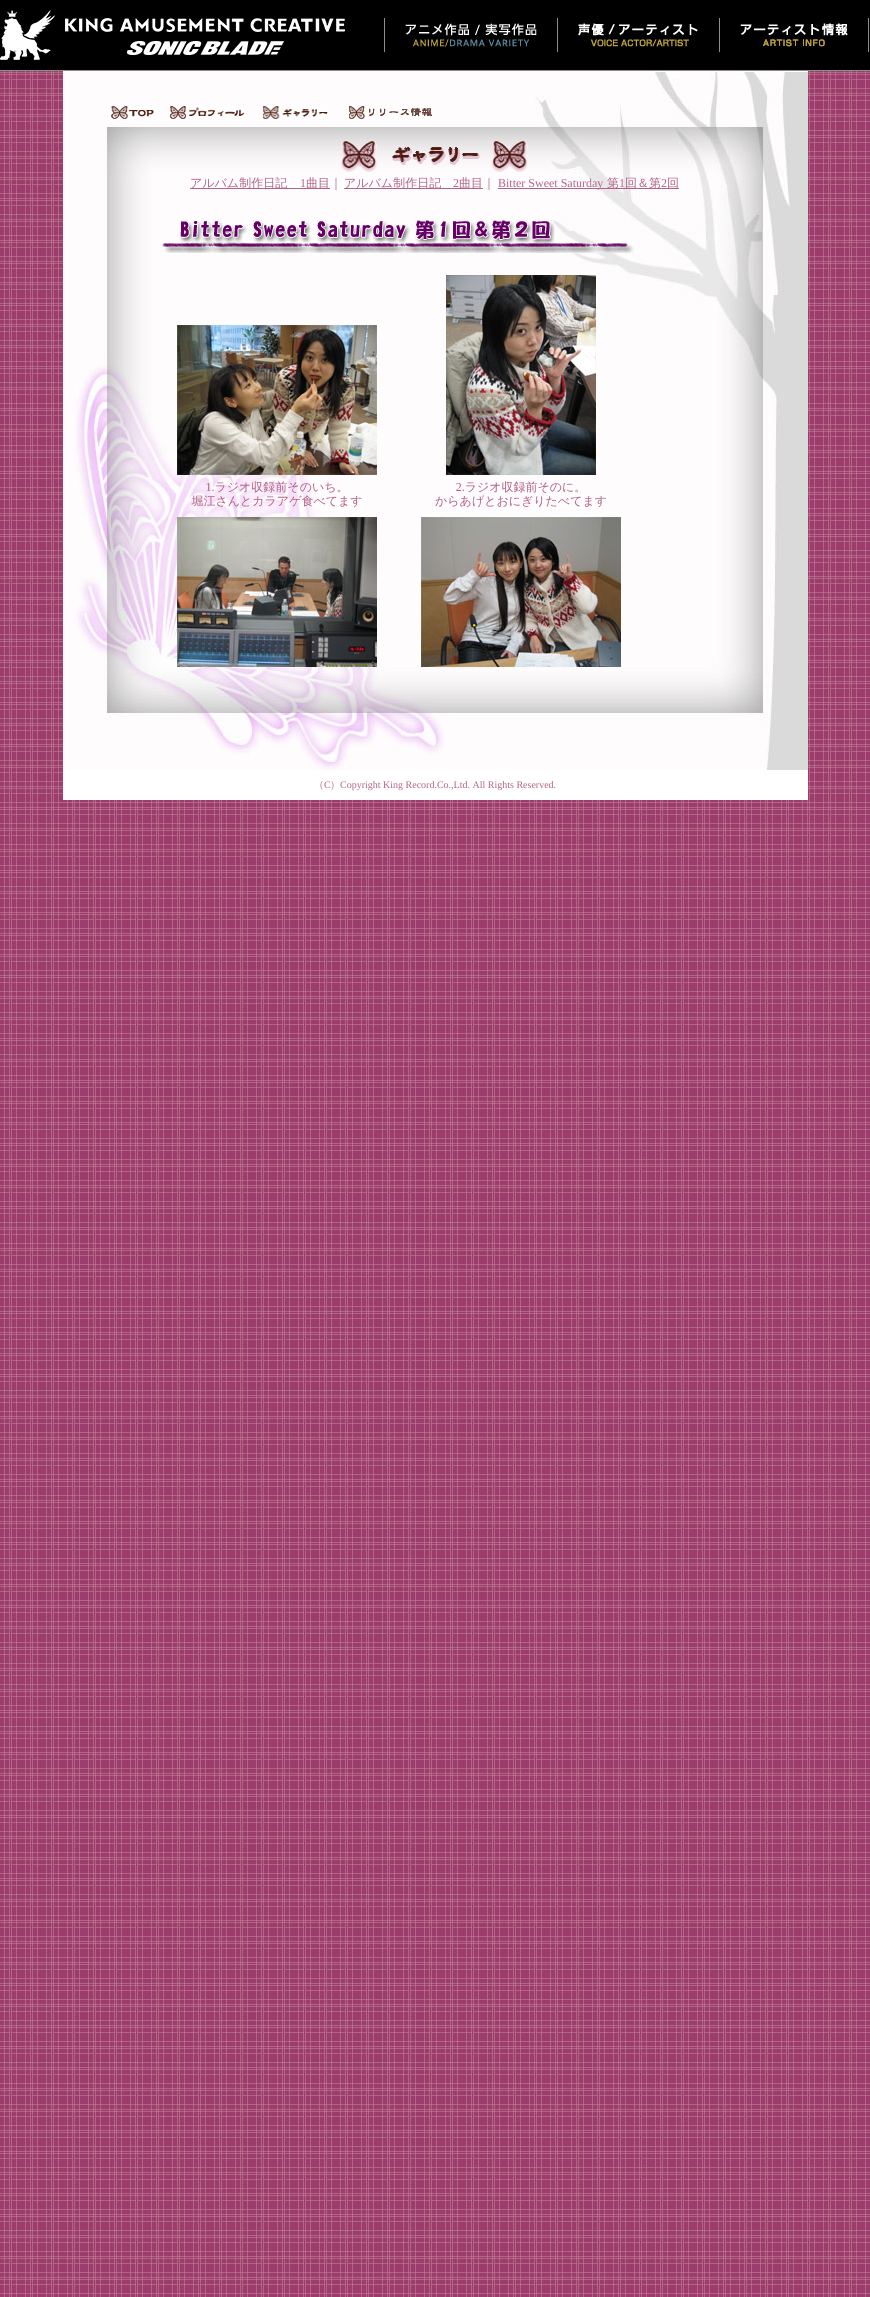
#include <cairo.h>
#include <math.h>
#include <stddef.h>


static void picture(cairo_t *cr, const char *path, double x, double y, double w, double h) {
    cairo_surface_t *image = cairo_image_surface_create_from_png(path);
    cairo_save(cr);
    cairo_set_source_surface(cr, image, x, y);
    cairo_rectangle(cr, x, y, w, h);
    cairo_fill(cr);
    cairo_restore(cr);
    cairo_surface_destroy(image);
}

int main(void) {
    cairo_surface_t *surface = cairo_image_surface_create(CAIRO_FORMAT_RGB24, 870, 2297);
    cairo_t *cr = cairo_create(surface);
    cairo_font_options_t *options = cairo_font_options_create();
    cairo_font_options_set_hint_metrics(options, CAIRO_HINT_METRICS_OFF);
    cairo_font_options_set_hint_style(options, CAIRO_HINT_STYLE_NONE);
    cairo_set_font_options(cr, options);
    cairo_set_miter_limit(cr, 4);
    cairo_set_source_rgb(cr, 1, 1, 1);
    cairo_paint(cr);
    picture(cr, "img1.png", 0, 71, 870, 2226);
    cairo_set_source_rgb(cr, 0, 0, 0);
    cairo_rectangle(cr, 0, 0, 870, 70);
    cairo_fill(cr);
    cairo_set_source_rgb(cr, 0.549, 0.549, 0.549);
    cairo_rectangle(cr, 0, 70, 870, 1);
    cairo_fill(cr);
    picture(cr, "img2.png", 0, 10, 345, 50);
    cairo_rectangle(cr, 868, 18, 1, 34);
    cairo_fill(cr);
    cairo_rectangle(cr, 384, 18, 1, 34);
    cairo_fill(cr);
    picture(cr, "img3.png", 405, 23, 132, 24);
    cairo_rectangle(cr, 557, 18, 1, 34);
    cairo_fill(cr);
    picture(cr, "img4.png", 578, 23, 120, 24);
    cairo_rectangle(cr, 719, 18, 1, 34);
    cairo_fill(cr);
    picture(cr, "img5.png", 740, 23, 108, 24);
    picture(cr, "img6.png", 63, 71, 745, 56);
    picture(cr, "img7.png", 111, 106, 43, 13);
    picture(cr, "img8.png", 170, 106, 74, 13);
    picture(cr, "img9.png", 263, 106, 65, 13);
    picture(cr, "img10.png", 349, 106, 83, 13);
    picture(cr, "img11.png", 63, 127, 91, 67);
    picture(cr, "img12.png", 154, 127, 562, 67);
    picture(cr, "img13.png", 340, 141, 188, 31);
    cairo_set_source_rgb(cr, 0.702, 0.388, 0.525);
    cairo_rectangle(cr, 190, 188, 140, 1);
    cairo_fill(cr);
    cairo_select_font_face(cr, "WenQuanYi Zen Hei Medium", CAIRO_FONT_SLANT_NORMAL, CAIRO_FONT_WEIGHT_NORMAL);
    cairo_set_font_size(cr, 12);
    cairo_move_to(cr, 190, 187);
    cairo_show_text(cr, "アルバム制作日記");
    cairo_select_font_face(cr, "Liberation Serif", CAIRO_FONT_SLANT_NORMAL, CAIRO_FONT_WEIGHT_NORMAL);
    cairo_move_to(cr, 300, 187);
    cairo_show_text(cr, "1");
    cairo_select_font_face(cr, "WenQuanYi Zen Hei Medium", CAIRO_FONT_SLANT_NORMAL, CAIRO_FONT_WEIGHT_NORMAL);
    cairo_move_to(cr, 306, 187);
    cairo_show_text(cr, "曲目｜");
    cairo_rectangle(cr, 344, 188, 139, 1);
    cairo_fill(cr);
    cairo_move_to(cr, 344, 187);
    cairo_show_text(cr, "アルバム制作日記");
    cairo_select_font_face(cr, "Liberation Serif", CAIRO_FONT_SLANT_NORMAL, CAIRO_FONT_WEIGHT_NORMAL);
    cairo_move_to(cr, 453, 187);
    cairo_show_text(cr, "2");
    cairo_select_font_face(cr, "WenQuanYi Zen Hei Medium", CAIRO_FONT_SLANT_NORMAL, CAIRO_FONT_WEIGHT_NORMAL);
    cairo_move_to(cr, 459, 187);
    cairo_show_text(cr, "曲目｜");
    cairo_rectangle(cr, 498, 188, 181, 1);
    cairo_fill(cr);
    cairo_select_font_face(cr, "Liberation Serif", CAIRO_FONT_SLANT_NORMAL, CAIRO_FONT_WEIGHT_NORMAL);
    cairo_move_to(cr, 498, 187);
    cairo_show_text(cr, "Bitter Sweet Saturday");
    cairo_select_font_face(cr, "WenQuanYi Zen Hei Medium", CAIRO_FONT_SLANT_NORMAL, CAIRO_FONT_WEIGHT_NORMAL);
    cairo_move_to(cr, 607, 187);
    cairo_show_text(cr, "第");
    cairo_select_font_face(cr, "Liberation Serif", CAIRO_FONT_SLANT_NORMAL, CAIRO_FONT_WEIGHT_NORMAL);
    cairo_move_to(cr, 619, 187);
    cairo_show_text(cr, "1");
    cairo_select_font_face(cr, "WenQuanYi Zen Hei Medium", CAIRO_FONT_SLANT_NORMAL, CAIRO_FONT_WEIGHT_NORMAL);
    cairo_move_to(cr, 625, 187);
    cairo_show_text(cr, "回＆第");
    cairo_select_font_face(cr, "Liberation Serif", CAIRO_FONT_SLANT_NORMAL, CAIRO_FONT_WEIGHT_NORMAL);
    cairo_move_to(cr, 661, 187);
    cairo_show_text(cr, "2");
    cairo_select_font_face(cr, "WenQuanYi Zen Hei Medium", CAIRO_FONT_SLANT_NORMAL, CAIRO_FONT_WEIGHT_NORMAL);
    cairo_move_to(cr, 667, 187);
    cairo_show_text(cr, "回");
    picture(cr, "img14.png", 716, 127, 92, 67);
    picture(cr, "img15.png", 63, 194, 91, 478);
    picture(cr, "img16.png", 154, 194, 562, 478);
    picture(cr, "img17.png", 162, 220, 472, 447);
    picture(cr, "img18.png", 716, 194, 92, 478);
    picture(cr, "img19.png", 63, 672, 91, 45);
    picture(cr, "img20.png", 154, 672, 562, 45);
    picture(cr, "img21.png", 716, 672, 92, 45);
    cairo_set_source_rgb(cr, 0.996, 0.988, 0.992);
    cairo_rectangle(cr, 63, 717, 91, 53);
    cairo_fill(cr);
    picture(cr, "img22.png", 154, 717, 562, 53);
    picture(cr, "img23.png", 716, 717, 92, 53);
    cairo_set_source_rgb(cr, 1, 1, 1);
    cairo_rectangle(cr, 63, 770, 745, 30);
    cairo_fill(cr);
    cairo_set_font_size(cr, 10);
    cairo_set_source_rgb(cr, 0.702, 0.388, 0.525);
    cairo_move_to(cr, 314, 788);
    cairo_show_text(cr, "（");
    cairo_select_font_face(cr, "Liberation Serif", CAIRO_FONT_SLANT_NORMAL, CAIRO_FONT_WEIGHT_NORMAL);
    cairo_move_to(cr, 324, 788);
    cairo_show_text(cr, "C");
    cairo_select_font_face(cr, "WenQuanYi Zen Hei Medium", CAIRO_FONT_SLANT_NORMAL, CAIRO_FONT_WEIGHT_NORMAL);
    cairo_move_to(cr, 330, 788);
    cairo_show_text(cr, "）");
    cairo_select_font_face(cr, "Liberation Serif", CAIRO_FONT_SLANT_NORMAL, CAIRO_FONT_WEIGHT_NORMAL);
    cairo_move_to(cr, 340, 788);
    cairo_show_text(cr, "Copyright King Record.Co.,Ltd. All Rights Reserved.");
    cairo_surface_write_to_png(surface, "page.png");
    cairo_font_options_destroy(options);
    cairo_destroy(cr);
    cairo_surface_destroy(surface);
    return 0;
}
